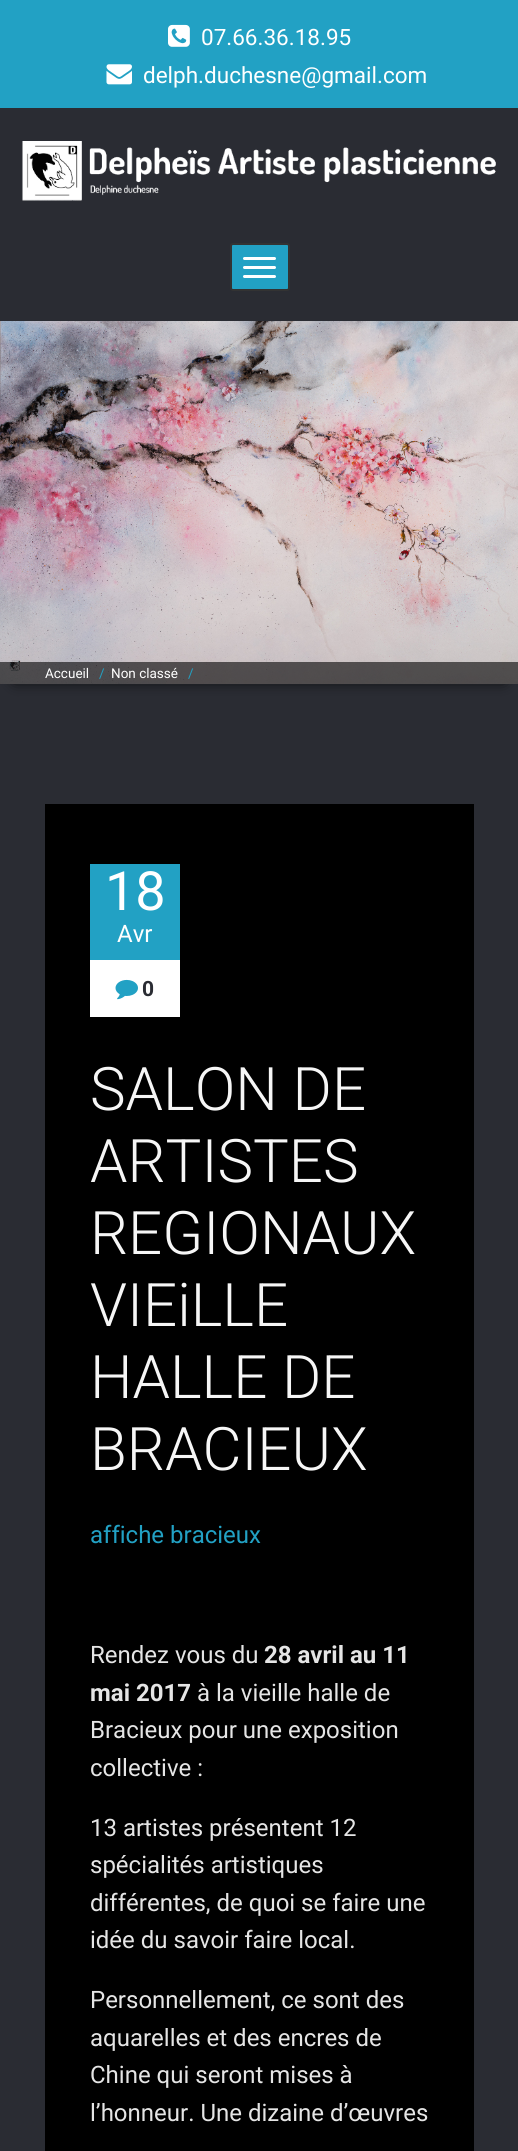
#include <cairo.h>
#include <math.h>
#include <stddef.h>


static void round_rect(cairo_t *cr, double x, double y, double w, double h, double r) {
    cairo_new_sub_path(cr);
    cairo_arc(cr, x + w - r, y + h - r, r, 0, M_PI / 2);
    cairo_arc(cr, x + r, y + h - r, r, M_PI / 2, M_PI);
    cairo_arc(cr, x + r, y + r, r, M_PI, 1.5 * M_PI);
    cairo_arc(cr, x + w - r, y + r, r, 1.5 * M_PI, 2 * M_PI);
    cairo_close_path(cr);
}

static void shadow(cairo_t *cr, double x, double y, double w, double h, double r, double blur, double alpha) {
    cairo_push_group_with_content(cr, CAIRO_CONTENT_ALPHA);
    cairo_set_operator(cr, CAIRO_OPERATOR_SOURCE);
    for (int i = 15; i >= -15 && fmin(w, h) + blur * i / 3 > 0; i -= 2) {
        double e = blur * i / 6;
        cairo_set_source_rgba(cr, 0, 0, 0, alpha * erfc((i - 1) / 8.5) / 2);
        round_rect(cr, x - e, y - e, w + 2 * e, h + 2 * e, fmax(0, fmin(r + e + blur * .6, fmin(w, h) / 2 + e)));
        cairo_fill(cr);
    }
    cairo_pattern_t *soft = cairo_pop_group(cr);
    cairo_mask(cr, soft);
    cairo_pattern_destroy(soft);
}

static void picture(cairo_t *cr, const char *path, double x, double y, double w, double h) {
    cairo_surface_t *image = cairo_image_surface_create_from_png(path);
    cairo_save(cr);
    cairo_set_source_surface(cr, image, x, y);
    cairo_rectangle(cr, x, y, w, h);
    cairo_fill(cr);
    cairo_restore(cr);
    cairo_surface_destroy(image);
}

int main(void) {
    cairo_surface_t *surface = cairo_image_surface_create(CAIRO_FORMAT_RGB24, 518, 2151);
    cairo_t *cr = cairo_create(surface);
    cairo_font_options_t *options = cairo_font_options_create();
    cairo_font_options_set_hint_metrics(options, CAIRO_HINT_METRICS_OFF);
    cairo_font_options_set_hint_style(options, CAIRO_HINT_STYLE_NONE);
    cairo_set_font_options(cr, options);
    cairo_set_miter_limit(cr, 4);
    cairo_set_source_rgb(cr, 0.165, 0.173, 0.2);
    cairo_paint(cr);
    cairo_set_source_rgb(cr, 0.133, 0.631, 0.769);
    cairo_rectangle(cr, 0, 0, 518, 108);
    cairo_fill(cr);
    picture(cr, "img1.png", 168, 24, 22, 23);
    cairo_select_font_face(cr, "Roboto", CAIRO_FONT_SLANT_NORMAL, CAIRO_FONT_WEIGHT_NORMAL);
    cairo_set_font_size(cr, 22.5);
    cairo_set_source_rgb(cr, 1, 1, 1);
    cairo_move_to(cr, 201, 45);
    cairo_show_text(cr, "07.66.36.18.95");
    picture(cr, "img2.png", 106, 64, 26, 21);
    cairo_move_to(cr, 143, 83);
    cairo_show_text(cr, "delph.duchesne@gmail.com");
    picture(cr, "img3.png", 22, 141, 474, 60);
    cairo_set_source_rgb(cr, 0.133, 0.631, 0.769);
    round_rect(cr, 231, 244, 58, 46, 2);
    cairo_fill_preserve(cr);
    cairo_set_source_rgb(cr, 0.2, 0.2, 0.2);
    cairo_stroke(cr);
    cairo_set_source_rgb(cr, 1, 1, 1);
    round_rect(cr, 243, 257, 33, 3, 1.5);
    cairo_fill(cr);
    round_rect(cr, 243, 266, 33, 3, 1.5);
    cairo_fill(cr);
    round_rect(cr, 243, 275, 33, 3, 1.5);
    cairo_fill(cr);
    cairo_set_source_rgb(cr, 0, 0, 0);
    shadow(cr, 15, 347, 489, 333, 0, 7.5, 1);
    picture(cr, "img4.png", 0, 321, 518, 363);
    cairo_set_source_rgba(cr, 0, 0, 0, 0.6);
    cairo_rectangle(cr, 0, 662, 518, 22);
    cairo_fill(cr);
    cairo_set_font_size(cr, 13.5);
    cairo_set_source_rgb(cr, 1, 1, 1);
    cairo_move_to(cr, 45, 678);
    cairo_show_text(cr, "Accueil");
    cairo_set_source_rgb(cr, 0.133, 0.631, 0.769);
    cairo_move_to(cr, 99, 678);
    cairo_show_text(cr, "/");
    cairo_set_source_rgb(cr, 1, 1, 1);
    cairo_move_to(cr, 111, 678);
    cairo_show_text(cr, "Non classé");
    cairo_set_source_rgb(cr, 0.133, 0.631, 0.769);
    cairo_move_to(cr, 188, 678);
    cairo_show_text(cr, "/");
    cairo_set_source_rgb(cr, 0, 0, 0);
    cairo_rectangle(cr, 45, 804, 429, 1347);
    cairo_fill(cr);
    cairo_set_source_rgb(cr, 1, 1, 1);
    cairo_rectangle(cr, 90, 960, 90, 57);
    cairo_fill(cr);
    cairo_set_source_rgb(cr, 0.133, 0.631, 0.769);
    cairo_rectangle(cr, 90, 864, 90, 96);
    cairo_fill(cr);
    cairo_set_font_size(cr, 54);
    cairo_set_source_rgb(cr, 1, 1, 1);
    cairo_move_to(cr, 105, 910);
    cairo_show_text(cr, "18");
    cairo_set_font_size(cr, 24);
    cairo_move_to(cr, 117, 942);
    cairo_show_text(cr, "Avr");
    picture(cr, "img5.png", 115, 979, 23, 21);
    cairo_select_font_face(cr, "Roboto", CAIRO_FONT_SLANT_NORMAL, CAIRO_FONT_WEIGHT_BOLD);
    cairo_set_font_size(cr, 21);
    cairo_set_source_rgb(cr, 0.165, 0.173, 0.2);
    cairo_move_to(cr, 142, 996);
    cairo_show_text(cr, "0");
    cairo_select_font_face(cr, "Roboto Light", CAIRO_FONT_SLANT_NORMAL, CAIRO_FONT_WEIGHT_NORMAL);
    cairo_set_font_size(cr, 60);
    cairo_set_source_rgb(cr, 0.961, 0.961, 0.961);
    cairo_move_to(cr, 90, 1110);
    cairo_show_text(cr, "SALON DE");
    cairo_move_to(cr, 90, 1182);
    cairo_show_text(cr, "ARTISTES");
    cairo_move_to(cr, 90, 1254);
    cairo_show_text(cr, "REGIONAUX");
    cairo_move_to(cr, 90, 1326);
    cairo_show_text(cr, "VIEiLLE");
    cairo_move_to(cr, 90, 1398);
    cairo_show_text(cr, "HALLE DE");
    cairo_move_to(cr, 90, 1470);
    cairo_show_text(cr, "BRACIEUX");
    cairo_select_font_face(cr, "Roboto", CAIRO_FONT_SLANT_NORMAL, CAIRO_FONT_WEIGHT_NORMAL);
    cairo_set_font_size(cr, 24);
    cairo_set_source_rgb(cr, 0.133, 0.631, 0.769);
    cairo_move_to(cr, 90, 1543);
    cairo_show_text(cr, "affiche bracieux");
    cairo_set_source_rgb(cr, 0.898, 0.898, 0.898);
    cairo_move_to(cr, 90, 1663);
    cairo_show_text(cr, "Rendez vous du");
    cairo_select_font_face(cr, "Roboto", CAIRO_FONT_SLANT_NORMAL, CAIRO_FONT_WEIGHT_BOLD);
    cairo_move_to(cr, 264, 1663);
    cairo_show_text(cr, "28 avril au 11");
    cairo_move_to(cr, 90, 1701);
    cairo_show_text(cr, "mai 2017");
    cairo_select_font_face(cr, "Roboto", CAIRO_FONT_SLANT_NORMAL, CAIRO_FONT_WEIGHT_NORMAL);
    cairo_move_to(cr, 197, 1701);
    cairo_show_text(cr, "à la vieille halle de");
    cairo_move_to(cr, 90, 1738);
    cairo_show_text(cr, "Bracieux pour une exposition");
    cairo_move_to(cr, 90, 1776);
    cairo_show_text(cr, "collective :");
    cairo_move_to(cr, 90, 1836);
    cairo_show_text(cr, "13 artistes présentent 12");
    cairo_move_to(cr, 90, 1873);
    cairo_show_text(cr, "spécialités artistiques");
    cairo_move_to(cr, 90, 1911);
    cairo_show_text(cr, "différentes, de quoi se faire une");
    cairo_move_to(cr, 90, 1948);
    cairo_show_text(cr, "idée du savoir faire local.");
    cairo_move_to(cr, 90, 2008);
    cairo_show_text(cr, "Personnellement, ce sont des");
    cairo_move_to(cr, 90, 2046);
    cairo_show_text(cr, "aquarelles et des encres de");
    cairo_move_to(cr, 90, 2083);
    cairo_show_text(cr, "Chine qui seront mises à");
    cairo_move_to(cr, 90, 2121);
    cairo_show_text(cr, "l’honneur. Une dizaine d’œuvres");
    cairo_surface_write_to_png(surface, "page.png");
    cairo_font_options_destroy(options);
    cairo_destroy(cr);
    cairo_surface_destroy(surface);
    return 0;
}
